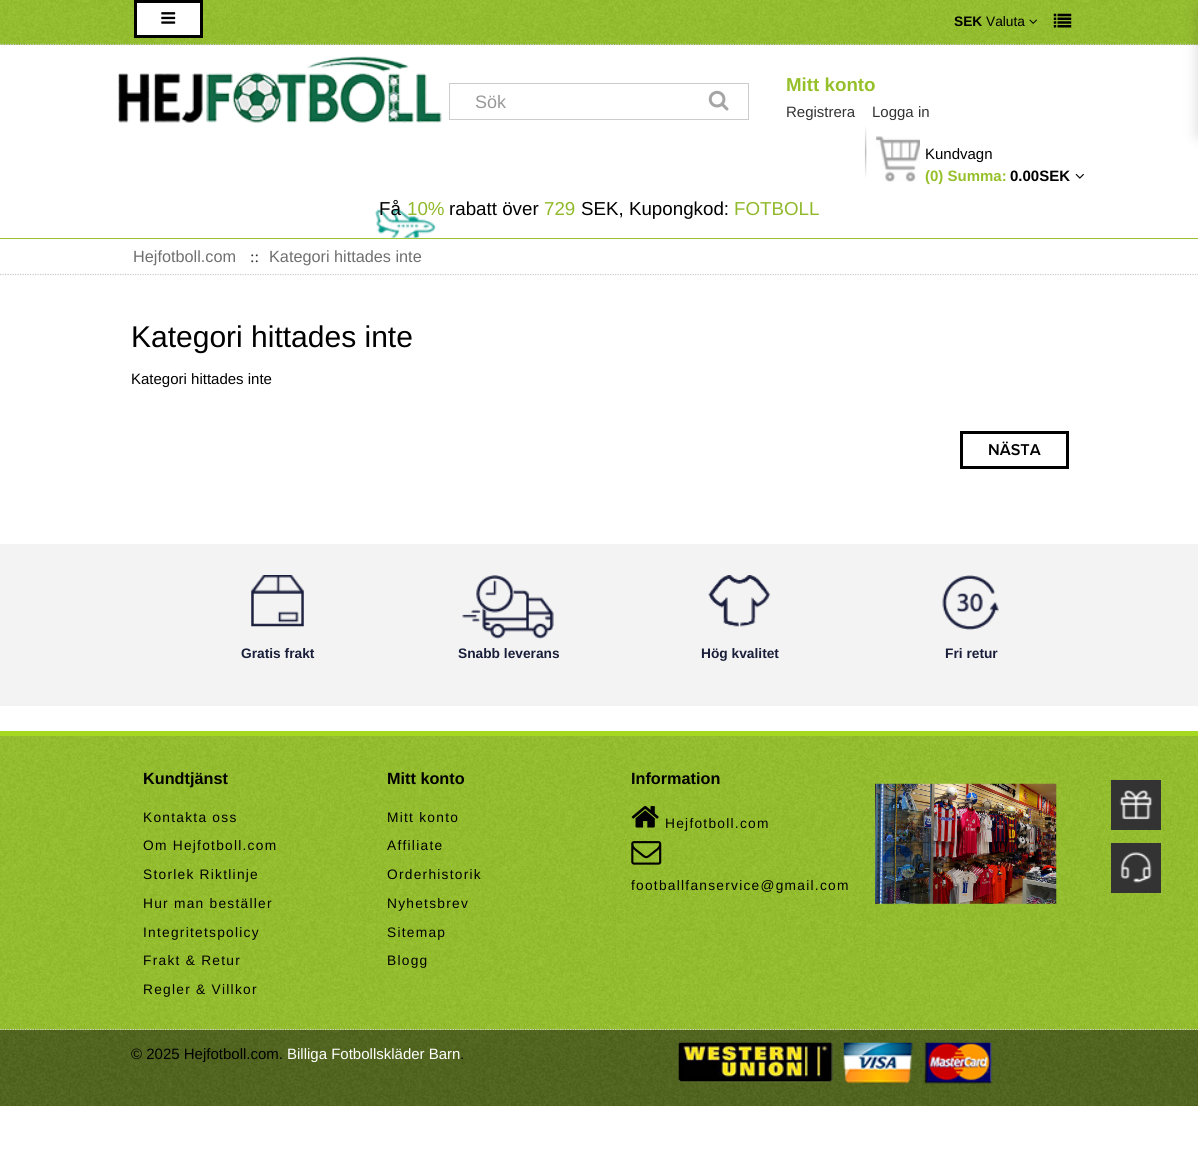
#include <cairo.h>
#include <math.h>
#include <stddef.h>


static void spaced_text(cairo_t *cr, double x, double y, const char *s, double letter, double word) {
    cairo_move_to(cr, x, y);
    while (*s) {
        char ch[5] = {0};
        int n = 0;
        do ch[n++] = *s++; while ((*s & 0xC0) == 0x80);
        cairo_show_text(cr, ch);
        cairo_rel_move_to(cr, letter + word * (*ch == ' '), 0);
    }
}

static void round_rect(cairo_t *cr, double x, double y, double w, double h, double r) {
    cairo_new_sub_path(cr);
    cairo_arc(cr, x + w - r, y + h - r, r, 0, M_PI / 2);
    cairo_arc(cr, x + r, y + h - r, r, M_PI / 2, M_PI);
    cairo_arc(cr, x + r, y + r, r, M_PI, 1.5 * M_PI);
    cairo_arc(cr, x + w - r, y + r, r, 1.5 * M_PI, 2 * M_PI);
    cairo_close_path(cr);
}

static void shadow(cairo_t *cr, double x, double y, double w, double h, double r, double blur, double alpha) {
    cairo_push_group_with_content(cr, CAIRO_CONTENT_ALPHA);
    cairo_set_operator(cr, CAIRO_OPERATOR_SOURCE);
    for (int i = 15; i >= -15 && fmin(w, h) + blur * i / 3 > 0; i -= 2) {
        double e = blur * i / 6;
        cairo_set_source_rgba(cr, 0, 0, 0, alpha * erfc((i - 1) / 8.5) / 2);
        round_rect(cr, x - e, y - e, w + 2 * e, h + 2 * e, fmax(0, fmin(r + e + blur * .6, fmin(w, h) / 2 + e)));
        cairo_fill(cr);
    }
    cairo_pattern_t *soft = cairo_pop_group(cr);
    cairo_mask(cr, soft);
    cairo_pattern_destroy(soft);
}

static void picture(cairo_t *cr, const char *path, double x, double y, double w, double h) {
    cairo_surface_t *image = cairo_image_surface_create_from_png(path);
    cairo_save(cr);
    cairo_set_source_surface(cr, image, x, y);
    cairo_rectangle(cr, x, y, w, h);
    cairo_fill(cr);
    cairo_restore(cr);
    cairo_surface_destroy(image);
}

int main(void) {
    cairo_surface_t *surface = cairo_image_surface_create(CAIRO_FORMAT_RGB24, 1198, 1168);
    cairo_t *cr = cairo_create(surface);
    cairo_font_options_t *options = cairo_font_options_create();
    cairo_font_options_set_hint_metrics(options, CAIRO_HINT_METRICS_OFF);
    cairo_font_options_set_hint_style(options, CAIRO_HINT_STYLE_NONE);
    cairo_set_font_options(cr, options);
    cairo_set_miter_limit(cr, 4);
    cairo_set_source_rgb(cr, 1, 1, 1);
    cairo_paint(cr);
    cairo_set_source_rgb(cr, 0.588, 0.753, 0.165);
    cairo_rectangle(cr, 0, 0, 1198, 45);
    cairo_fill(cr);
    picture(cr, "img1.png", 0, 0, 1198, 45);
    cairo_new_path(cr);
    cairo_move_to(cr, 0, 44.5);
    cairo_line_to(cr, 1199, 44.5);
    cairo_set_source_rgb(cr, 0.78, 0.78, 0.78);
    cairo_set_line_width(cr, 1.2);
    cairo_set_dash(cr, (double[]){1.25, 1.25}, 2, 0);
    cairo_stroke(cr);
    cairo_set_source_rgb(cr, 1, 1, 1);
    cairo_rectangle(cr, 135.5, 1.5, 66, 35);
    cairo_fill_preserve(cr);
    cairo_set_source_rgb(cr, 0, 0, 0);
    cairo_set_line_width(cr, 3);
    cairo_set_dash(cr, NULL, 0, 0);
    cairo_stroke(cr);
    picture(cr, "img2.png", 161, 12, 15, 12);
    cairo_select_font_face(cr, "Liberation Sans", CAIRO_FONT_SLANT_NORMAL, CAIRO_FONT_WEIGHT_BOLD);
    cairo_set_font_size(cr, 13.75);
    cairo_move_to(cr, 954, 26);
    cairo_show_text(cr, "SEK");
    cairo_select_font_face(cr, "Liberation Sans", CAIRO_FONT_SLANT_NORMAL, CAIRO_FONT_WEIGHT_NORMAL);
    cairo_move_to(cr, 986, 26);
    cairo_show_text(cr, "Valuta");
    picture(cr, "img3.png", 1029, 19, 8, 5);
    picture(cr, "img4.png", 1053, 13, 19, 15);
    picture(cr, "img5.png", 118, 56, 324, 67);
    cairo_set_source_rgb(cr, 0.8, 0.8, 0.8);
    cairo_rectangle(cr, 449, 83, 300, 1);
    cairo_fill(cr);
    cairo_rectangle(cr, 748, 83, 1, 37);
    cairo_fill(cr);
    cairo_rectangle(cr, 449, 119, 300, 1);
    cairo_fill(cr);
    picture(cr, "img6.png", 708, 90, 21, 21);
    cairo_rectangle(cr, 449, 83, 1, 37);
    cairo_fill(cr);
    cairo_set_font_size(cr, 18);
    cairo_set_source_rgb(cr, 0.6, 0.6, 0.6);
    cairo_move_to(cr, 475, 108);
    cairo_show_text(cr, "Sök");
    cairo_select_font_face(cr, "Liberation Sans", CAIRO_FONT_SLANT_NORMAL, CAIRO_FONT_WEIGHT_BOLD);
    cairo_set_font_size(cr, 18.75);
    cairo_set_source_rgb(cr, 0.588, 0.753, 0.165);
    cairo_move_to(cr, 786, 91);
    cairo_show_text(cr, "Mitt konto");
    cairo_select_font_face(cr, "Liberation Sans", CAIRO_FONT_SLANT_NORMAL, CAIRO_FONT_WEIGHT_NORMAL);
    cairo_set_font_size(cr, 15);
    cairo_set_source_rgb(cr, 0.2, 0.2, 0.2);
    cairo_move_to(cr, 786, 117);
    cairo_show_text(cr, "Registrera");
    cairo_move_to(cr, 872, 117);
    cairo_show_text(cr, "Logga in");
    picture(cr, "img7.png", 864, 127, 3, 50);
    cairo_set_source_rgb(cr, 0, 0, 0);
    shadow(cr, 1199, 10, 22, 125, 0, 7.5, 0.18);
    picture(cr, "img8.png", 876, 136, 44, 46);
    cairo_set_source_rgb(cr, 0, 0, 0);
    cairo_move_to(cr, 925, 159);
    cairo_show_text(cr, "Kundvagn");
    cairo_select_font_face(cr, "Liberation Sans", CAIRO_FONT_SLANT_NORMAL, CAIRO_FONT_WEIGHT_BOLD);
    cairo_set_source_rgb(cr, 0.588, 0.753, 0.165);
    cairo_move_to(cr, 925, 181);
    cairo_show_text(cr, "(0) Summa:");
    cairo_set_source_rgb(cr, 0, 0, 0);
    cairo_move_to(cr, 1010, 181);
    cairo_show_text(cr, "0.00SEK");
    picture(cr, "img9.png", 1075, 173, 9, 6);
    picture(cr, "img10.png", 375, 208, 61, 30);
    cairo_select_font_face(cr, "Liberation Sans", CAIRO_FONT_SLANT_NORMAL, CAIRO_FONT_WEIGHT_NORMAL);
    cairo_set_font_size(cr, 18.75);
    cairo_move_to(cr, 379, 215);
    cairo_show_text(cr, "Få");
    cairo_set_source_rgb(cr, 0.569, 0.725, 0.173);
    cairo_move_to(cr, 407, 215);
    cairo_show_text(cr, "10%");
    cairo_set_source_rgb(cr, 0, 0, 0);
    cairo_move_to(cr, 449, 215);
    cairo_show_text(cr, "rabatt över");
    cairo_set_source_rgb(cr, 0.569, 0.725, 0.173);
    cairo_move_to(cr, 544, 215);
    cairo_show_text(cr, "729");
    cairo_set_source_rgb(cr, 0, 0, 0);
    cairo_move_to(cr, 581, 215);
    cairo_show_text(cr, "SEK, Kupongkod:");
    cairo_set_source_rgb(cr, 0.569, 0.725, 0.173);
    cairo_move_to(cr, 734, 215);
    cairo_show_text(cr, "FOTBOLL");
    cairo_set_source_rgb(cr, 0.604, 0.761, 0.208);
    cairo_rectangle(cr, 0, 238, 1198, 1);
    cairo_fill(cr);
    cairo_new_path(cr);
    cairo_move_to(cr, 0, 274.5);
    cairo_line_to(cr, 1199, 274.5);
    cairo_set_source_rgb(cr, 0.792, 0.792, 0.792);
    cairo_set_line_width(cr, 1.2);
    cairo_set_dash(cr, (double[]){1.25, 1.25}, 2, 0);
    cairo_stroke(cr);
    cairo_set_source_rgb(cr, 1, 1, 1);
    cairo_rectangle(cr, 132, 273, 937, 1);
    cairo_fill(cr);
    cairo_set_font_size(cr, 16.25);
    cairo_set_source_rgb(cr, 0.435, 0.435, 0.435);
    cairo_move_to(cr, 133, 262);
    cairo_show_text(cr, "Hejfotboll.com");
    cairo_select_font_face(cr, "Liberation Serif", CAIRO_FONT_SLANT_NORMAL, CAIRO_FONT_WEIGHT_NORMAL);
    cairo_set_source_rgb(cr, 0.2, 0.2, 0.2);
    cairo_move_to(cr, 250, 262);
    cairo_show_text(cr, "::");
    cairo_select_font_face(cr, "Liberation Sans", CAIRO_FONT_SLANT_NORMAL, CAIRO_FONT_WEIGHT_NORMAL);
    cairo_set_source_rgb(cr, 0.435, 0.435, 0.435);
    cairo_move_to(cr, 269, 262);
    cairo_show_text(cr, "Kategori hittades inte");
    cairo_set_font_size(cr, 30);
    cairo_set_source_rgb(cr, 0, 0, 0);
    cairo_move_to(cr, 131, 347);
    cairo_show_text(cr, "Kategori hittades inte");
    cairo_set_font_size(cr, 15);
    cairo_move_to(cr, 131, 384);
    cairo_show_text(cr, "Kategori hittades inte");
    cairo_rectangle(cr, 961.5, 432.5, 106, 35);
    cairo_set_line_width(cr, 3);
    cairo_set_dash(cr, NULL, 0, 0);
    cairo_stroke(cr);
    cairo_select_font_face(cr, "Proxima Nova SemiBold", CAIRO_FONT_SLANT_NORMAL, CAIRO_FONT_WEIGHT_NORMAL);
    cairo_set_font_size(cr, 16.25);
    cairo_move_to(cr, 988, 455);
    cairo_show_text(cr, "NÄSTA");
    cairo_set_source_rgb(cr, 0.953, 0.953, 0.953);
    cairo_rectangle(cr, 0, 544, 1198, 162);
    cairo_fill(cr);
    picture(cr, "img11.png", 251, 575, 53, 52);
    cairo_select_font_face(cr, "Liberation Sans", CAIRO_FONT_SLANT_NORMAL, CAIRO_FONT_WEIGHT_BOLD);
    cairo_set_font_size(cr, 13.75);
    cairo_set_source_rgb(cr, 0.098, 0.122, 0.227);
    cairo_move_to(cr, 241, 658);
    cairo_show_text(cr, "Gratis frakt");
    picture(cr, "img12.png", 462, 575, 92, 64);
    cairo_move_to(cr, 458, 658);
    cairo_show_text(cr, "Snabb leverans");
    picture(cr, "img13.png", 708, 575, 63, 52);
    cairo_move_to(cr, 701, 658);
    cairo_show_text(cr, "Hög kvalitet");
    picture(cr, "img14.png", 942, 575, 57, 55);
    cairo_move_to(cr, 945, 658);
    cairo_show_text(cr, "Fri retur");
    cairo_set_source_rgb(cr, 0.588, 0.753, 0.165);
    cairo_rectangle(cr, 0, 736, 1198, 294);
    cairo_fill(cr);
    picture(cr, "img15.png", 0, 736, 1198, 294);
    cairo_set_source_rgb(cr, 0.643, 0.847, 0.129);
    cairo_rectangle(cr, 0, 731, 1198, 5);
    cairo_fill(cr);
    cairo_new_path(cr);
    cairo_move_to(cr, 0, 1029.5);
    cairo_line_to(cr, 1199, 1029.5);
    cairo_set_source_rgb(cr, 0.792, 0.792, 0.792);
    cairo_set_line_width(cr, 1.2);
    cairo_set_dash(cr, (double[]){1.25, 1.25}, 2, 0);
    cairo_stroke(cr);
    cairo_set_font_size(cr, 16.25);
    cairo_set_source_rgb(cr, 0, 0, 0);
    cairo_move_to(cr, 143, 784);
    cairo_show_text(cr, "Kundtjänst");
    cairo_select_font_face(cr, "Liberation Sans", CAIRO_FONT_SLANT_NORMAL, CAIRO_FONT_WEIGHT_NORMAL);
    cairo_set_font_size(cr, 13.75);
    spaced_text(cr, 143, 822, "Kontakta oss", 1.25, 0);
    spaced_text(cr, 143, 850, "Om Hejfotboll.com", 1.25, 0);
    spaced_text(cr, 143, 879, "Storlek Riktlinje", 1.25, 0);
    spaced_text(cr, 143, 908, "Hur man beställer", 1.25, 0);
    spaced_text(cr, 143, 937, "Integritetspolicy", 1.25, 0);
    spaced_text(cr, 143, 965, "Frakt & Retur", 1.25, 0);
    spaced_text(cr, 143, 994, "Regler & Villkor", 1.25, 0);
    cairo_select_font_face(cr, "Liberation Sans", CAIRO_FONT_SLANT_NORMAL, CAIRO_FONT_WEIGHT_BOLD);
    cairo_set_font_size(cr, 16.25);
    cairo_move_to(cr, 387, 784);
    cairo_show_text(cr, "Mitt konto");
    cairo_select_font_face(cr, "Liberation Sans", CAIRO_FONT_SLANT_NORMAL, CAIRO_FONT_WEIGHT_NORMAL);
    cairo_set_font_size(cr, 13.75);
    spaced_text(cr, 387, 822, "Mitt konto", 1.25, 0);
    spaced_text(cr, 387, 850, "Affiliate", 1.25, 0);
    spaced_text(cr, 387, 879, "Orderhistorik", 1.25, 0);
    spaced_text(cr, 387, 908, "Nyhetsbrev", 1.25, 0);
    spaced_text(cr, 387, 937, "Sitemap", 1.25, 0);
    spaced_text(cr, 387, 965, "Blogg", 1.25, 0);
    cairo_select_font_face(cr, "Liberation Sans", CAIRO_FONT_SLANT_NORMAL, CAIRO_FONT_WEIGHT_BOLD);
    cairo_set_font_size(cr, 16.25);
    cairo_move_to(cr, 631, 784);
    cairo_show_text(cr, "Information");
    picture(cr, "img16.png", 631, 806, 28, 22);
    cairo_select_font_face(cr, "Liberation Sans", CAIRO_FONT_SLANT_NORMAL, CAIRO_FONT_WEIGHT_NORMAL);
    cairo_set_font_size(cr, 13.75);
    spaced_text(cr, 665, 828, "Hejfotboll.com", 1.25, 0);
    picture(cr, "img17.png", 631, 841, 31, 24);
    spaced_text(cr, 631, 890, "footballfanservice@gmail.com", 1.25, 0);
    picture(cr, "img18.png", 875, 783, 182, 121);
    cairo_set_source_rgb(cr, 0.306, 0.388, 0.102);
    cairo_rectangle(cr, 0, 1030, 1198, 76);
    cairo_fill(cr);
    picture(cr, "img19.png", 0, 1030, 1198, 76);
    cairo_set_font_size(cr, 15);
    cairo_set_source_rgb(cr, 0, 0, 0);
    cairo_move_to(cr, 131, 1059);
    cairo_show_text(cr, "© 2025 Hejfotboll.com.");
    cairo_set_source_rgb(cr, 1, 1, 1);
    cairo_move_to(cr, 287, 1059);
    cairo_show_text(cr, "Billiga Fotbollskläder Barn");
    cairo_set_source_rgb(cr, 0, 0, 0);
    cairo_move_to(cr, 460, 1059);
    cairo_show_text(cr, ".");
    picture(cr, "img20.png", 678, 1042, 314, 42);
    cairo_set_source_rgb(cr, 0.2, 0.2, 0.2);
    cairo_rectangle(cr, 1111, 780, 50, 50);
    cairo_fill(cr);
    picture(cr, "img21.png", 1119, 790, 34, 30);
    cairo_rectangle(cr, 1111, 843, 50, 50);
    cairo_fill(cr);
    picture(cr, "img22.png", 1120, 852, 32, 31);
    cairo_surface_write_to_png(surface, "page.png");
    cairo_font_options_destroy(options);
    cairo_destroy(cr);
    cairo_surface_destroy(surface);
    return 0;
}
